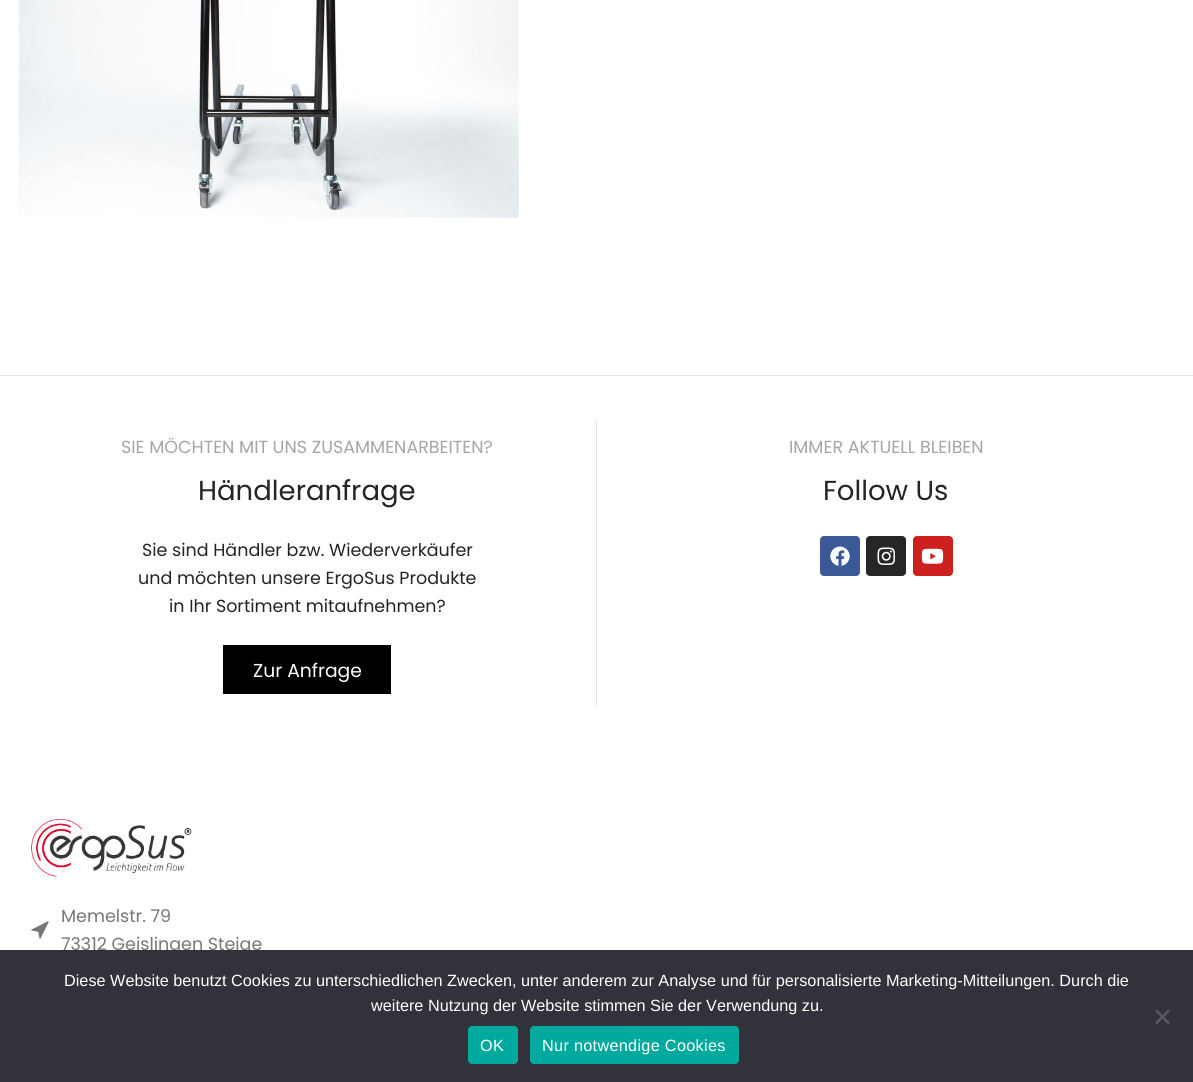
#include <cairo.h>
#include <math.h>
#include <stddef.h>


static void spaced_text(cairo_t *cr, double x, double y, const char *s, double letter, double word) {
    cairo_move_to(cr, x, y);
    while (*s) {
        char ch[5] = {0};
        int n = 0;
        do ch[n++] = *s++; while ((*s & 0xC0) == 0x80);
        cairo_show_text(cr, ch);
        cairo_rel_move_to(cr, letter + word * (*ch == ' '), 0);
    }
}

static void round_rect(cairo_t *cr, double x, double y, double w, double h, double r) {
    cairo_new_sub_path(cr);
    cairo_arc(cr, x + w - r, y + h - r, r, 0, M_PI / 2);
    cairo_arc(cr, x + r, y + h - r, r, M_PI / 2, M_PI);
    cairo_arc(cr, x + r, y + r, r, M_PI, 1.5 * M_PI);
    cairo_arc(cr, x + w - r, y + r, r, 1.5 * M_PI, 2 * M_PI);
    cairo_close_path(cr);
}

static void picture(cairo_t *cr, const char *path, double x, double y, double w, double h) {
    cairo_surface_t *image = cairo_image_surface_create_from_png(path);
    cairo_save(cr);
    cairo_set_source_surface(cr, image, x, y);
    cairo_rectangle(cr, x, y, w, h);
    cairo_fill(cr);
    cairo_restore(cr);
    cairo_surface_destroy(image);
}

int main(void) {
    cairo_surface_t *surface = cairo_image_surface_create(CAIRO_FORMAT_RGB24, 1193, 1082);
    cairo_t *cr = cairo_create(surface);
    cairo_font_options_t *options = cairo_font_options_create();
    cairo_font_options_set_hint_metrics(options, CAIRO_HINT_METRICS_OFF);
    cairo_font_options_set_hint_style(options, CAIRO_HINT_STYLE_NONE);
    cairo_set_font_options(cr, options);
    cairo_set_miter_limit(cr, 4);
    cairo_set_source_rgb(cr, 1, 1, 1);
    cairo_paint(cr);
    picture(cr, "img1.png", 18, 0, 501, 218);
    cairo_set_source_rgb(cr, 0.902, 0.902, 0.902);
    cairo_rectangle(cr, 0, 375, 1193, 1);
    cairo_fill(cr);
    cairo_rectangle(cr, 596, 420, 1, 286);
    cairo_fill(cr);
    cairo_select_font_face(cr, "Poppins", CAIRO_FONT_SLANT_NORMAL, CAIRO_FONT_WEIGHT_NORMAL);
    cairo_set_font_size(cr, 17.5);
    cairo_set_source_rgb(cr, 0.647, 0.647, 0.647);
    cairo_move_to(cr, 121, 453);
    cairo_show_text(cr, "SIE MÖCHTEN MIT UNS ZUSAMMENARBEITEN?");
    cairo_set_font_size(cr, 27.5);
    cairo_set_source_rgb(cr, 0.141, 0.141, 0.141);
    cairo_move_to(cr, 198, 500);
    cairo_show_text(cr, "Händleranfrage");
    cairo_set_font_size(cr, 17.5);
    cairo_move_to(cr, 142, 556);
    cairo_show_text(cr, "Sie sind Händler bzw. Wiederverkäufer");
    cairo_move_to(cr, 138, 584);
    cairo_show_text(cr, "und möchten unsere ErgoSus Produkte");
    cairo_move_to(cr, 169, 612);
    cairo_show_text(cr, "in Ihr Sortiment mitaufnehmen?");
    cairo_set_source_rgb(cr, 0, 0, 0);
    cairo_rectangle(cr, 223, 645, 168, 49);
    cairo_fill(cr);
    cairo_set_font_size(cr, 18.75);
    cairo_set_source_rgb(cr, 1, 1, 1);
    cairo_move_to(cr, 253, 677);
    cairo_show_text(cr, "Zur Anfrage");
    cairo_set_font_size(cr, 17.5);
    cairo_set_source_rgb(cr, 0.647, 0.647, 0.647);
    cairo_move_to(cr, 789, 453);
    cairo_show_text(cr, "IMMER AKTUELL BLEIBEN");
    cairo_set_font_size(cr, 27.5);
    cairo_set_source_rgb(cr, 0.141, 0.141, 0.141);
    cairo_move_to(cr, 823, 500);
    cairo_show_text(cr, "Follow Us");
    cairo_set_source_rgb(cr, 0.231, 0.349, 0.596);
    round_rect(cr, 820, 536, 40, 40, 4);
    cairo_fill(cr);
    picture(cr, "img2.png", 830, 546, 20, 20);
    cairo_set_source_rgb(cr, 0.149, 0.149, 0.149);
    round_rect(cr, 866, 536, 40, 40, 4);
    cairo_fill(cr);
    picture(cr, "img3.png", 877, 547, 19, 18);
    cairo_set_source_rgb(cr, 0.804, 0.125, 0.122);
    round_rect(cr, 913, 536, 40, 40, 4);
    cairo_fill(cr);
    picture(cr, "img4.png", 921, 548, 23, 16);
    picture(cr, "img5.png", 31, 819, 161, 58);
    picture(cr, "img6.png", 31, 921, 18, 18);
    cairo_set_font_size(cr, 17.5);
    cairo_set_source_rgb(cr, 0.467, 0.467, 0.467);
    cairo_move_to(cr, 61, 922);
    cairo_show_text(cr, "Memelstr. 79");
    cairo_move_to(cr, 61, 950);
    cairo_show_text(cr, "73312 Geislingen Steige");
    cairo_set_source_rgb(cr, 0.196, 0.196, 0.227);
    cairo_rectangle(cr, 0, 950, 1193, 132);
    cairo_fill(cr);
    cairo_select_font_face(cr, "Liberation Sans", CAIRO_FONT_SLANT_NORMAL, CAIRO_FONT_WEIGHT_NORMAL);
    cairo_set_font_size(cr, 16.25);
    cairo_set_source_rgb(cr, 1, 1, 1);
    cairo_move_to(cr, 64, 986);
    cairo_show_text(cr, "Diese Website benutzt Cookies zu unterschiedlichen Zwecken, unter anderem zur Analyse und für personalisierte Marketing-Mitteilungen. Durch die");
    cairo_move_to(cr, 371, 1011);
    cairo_show_text(cr, "weitere Nutzung der Website stimmen Sie der Verwendung zu.");
    cairo_set_source_rgb(cr, 0.349, 0.349, 0.365);
    cairo_new_path(cr);
    cairo_move_to(cr, 1168, 1009.5);
    cairo_line_to(cr, 1170, 1011);
    cairo_line_to(cr, 1157, 1024.5);
    cairo_line_to(cr, 1155, 1022.5);
    cairo_close_path(cr);
    cairo_fill(cr);
    cairo_new_path(cr);
    cairo_move_to(cr, 1155, 1011);
    cairo_line_to(cr, 1157, 1009.5);
    cairo_line_to(cr, 1170, 1022.5);
    cairo_line_to(cr, 1168, 1024.5);
    cairo_close_path(cr);
    cairo_fill(cr);
    cairo_set_source_rgb(cr, 0, 0.663, 0.616);
    round_rect(cr, 468, 1026, 50, 38, 4);
    cairo_fill(cr);
    cairo_set_source_rgb(cr, 1, 1, 1);
    spaced_text(cr, 480, 1051, "OK", 0.3, 0);
    cairo_set_source_rgb(cr, 0, 0.663, 0.616);
    round_rect(cr, 530, 1026, 209, 38, 4);
    cairo_fill(cr);
    cairo_set_source_rgb(cr, 1, 1, 1);
    spaced_text(cr, 542, 1051, "Nur notwendige Cookies", 0.3, 0);
    cairo_surface_write_to_png(surface, "page.png");
    cairo_font_options_destroy(options);
    cairo_destroy(cr);
    cairo_surface_destroy(surface);
    return 0;
}
